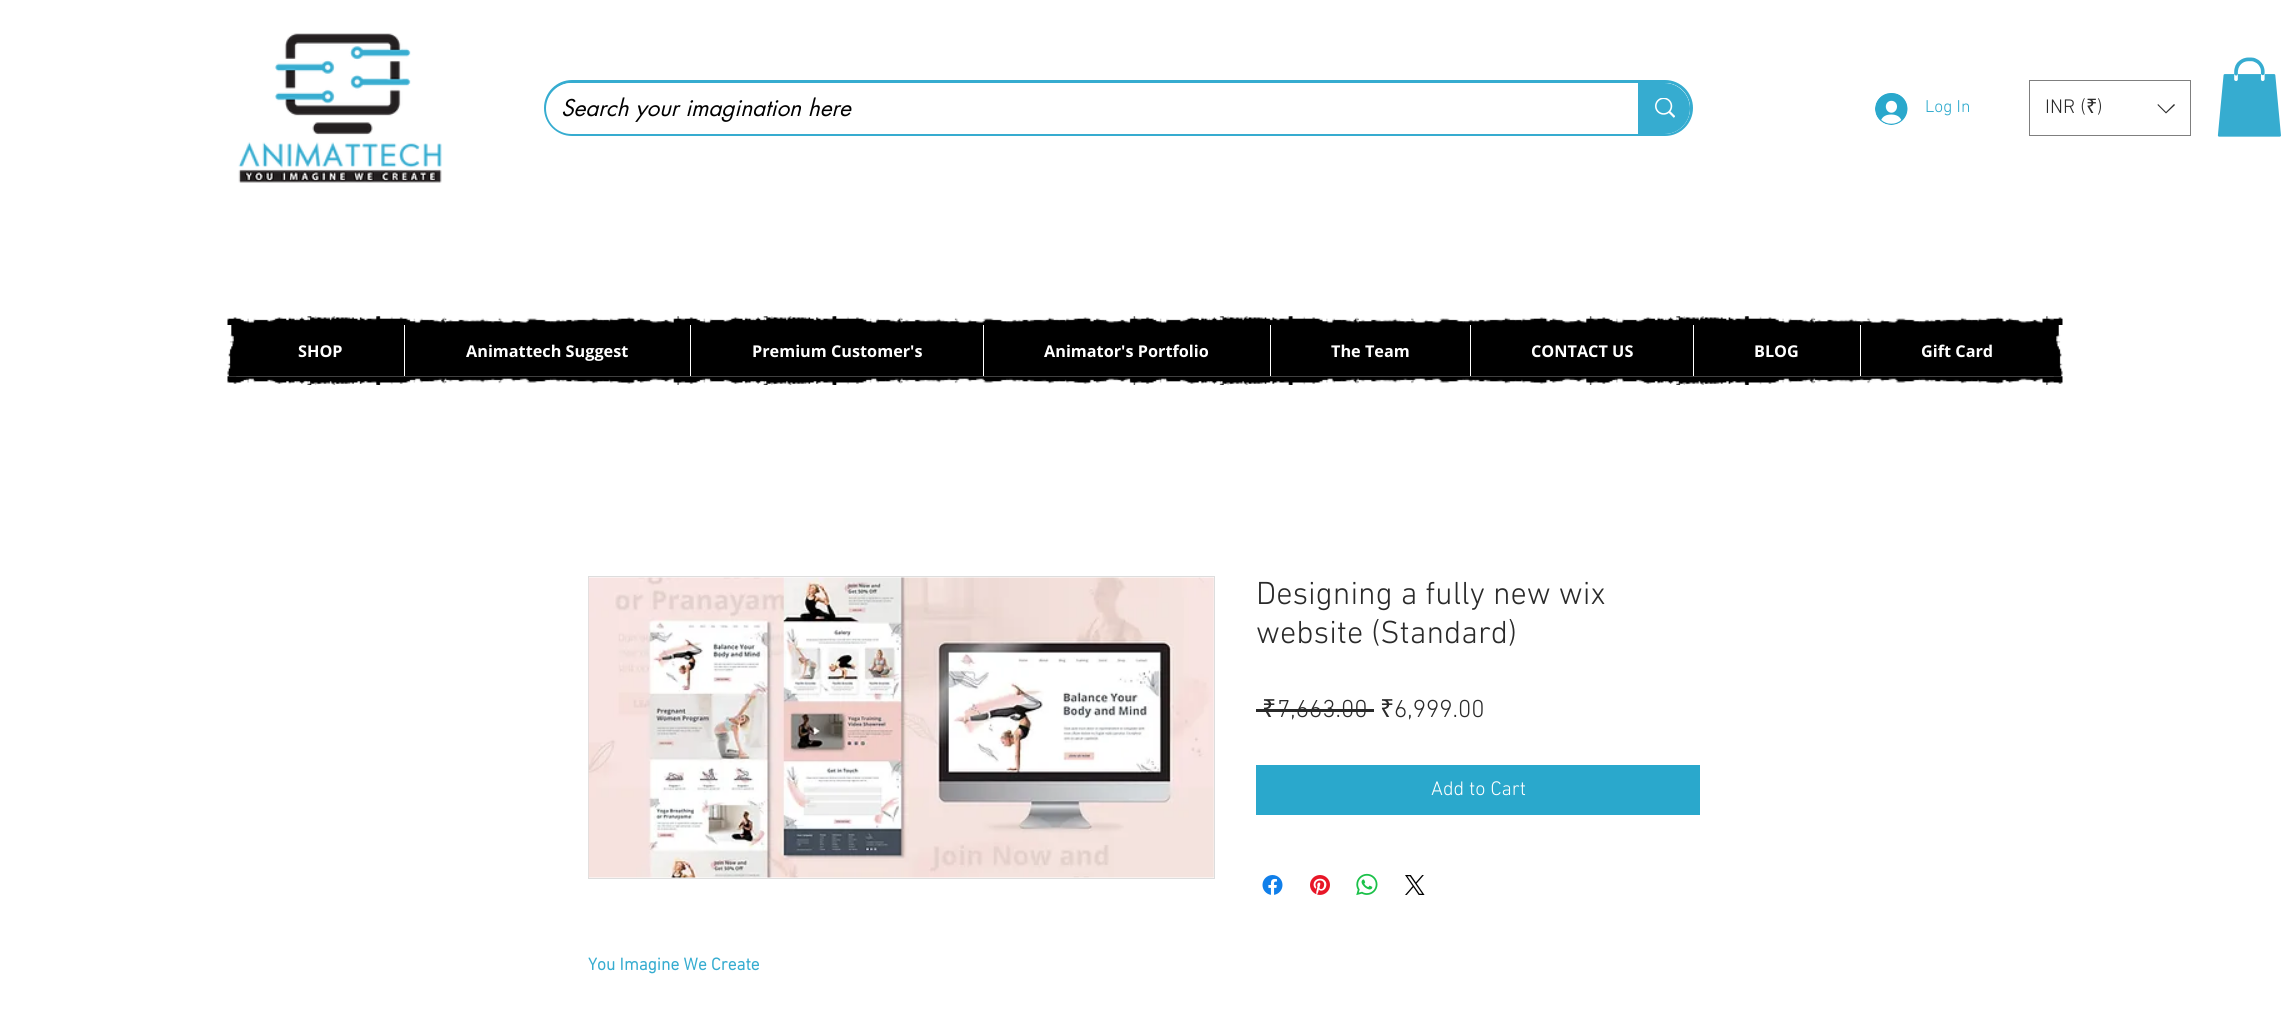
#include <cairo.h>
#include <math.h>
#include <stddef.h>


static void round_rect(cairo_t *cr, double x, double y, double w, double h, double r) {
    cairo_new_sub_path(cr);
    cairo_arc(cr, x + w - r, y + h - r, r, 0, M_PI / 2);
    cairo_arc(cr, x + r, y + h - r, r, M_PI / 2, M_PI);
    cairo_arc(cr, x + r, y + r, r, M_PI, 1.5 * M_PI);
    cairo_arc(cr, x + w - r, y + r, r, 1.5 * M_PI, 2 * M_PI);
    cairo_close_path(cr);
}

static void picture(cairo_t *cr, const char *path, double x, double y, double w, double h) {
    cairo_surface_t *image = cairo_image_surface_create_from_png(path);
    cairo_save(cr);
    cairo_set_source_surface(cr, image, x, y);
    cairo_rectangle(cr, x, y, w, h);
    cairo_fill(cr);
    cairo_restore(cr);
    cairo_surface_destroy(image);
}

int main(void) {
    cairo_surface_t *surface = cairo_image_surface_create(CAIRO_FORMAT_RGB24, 2287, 1022);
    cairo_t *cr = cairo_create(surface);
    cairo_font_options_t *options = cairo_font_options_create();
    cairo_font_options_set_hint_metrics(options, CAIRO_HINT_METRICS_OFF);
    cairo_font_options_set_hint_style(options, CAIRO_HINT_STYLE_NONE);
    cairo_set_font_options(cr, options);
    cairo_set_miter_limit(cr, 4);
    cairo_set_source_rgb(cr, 1, 1, 1);
    cairo_paint(cr);
    picture(cr, "img1.png", 238, 33, 204, 150);
    round_rect(cr, 545.5, 81.5, 1146, 53, 26.5);
    cairo_set_source_rgb(cr, 0.212, 0.675, 0.816);
    cairo_set_line_width(cr, 3);
    cairo_stroke(cr);
    cairo_set_source_rgb(cr, 1, 1, 1);
    round_rect(cr, 546, 83, 1144, 51, 25.5);
    cairo_fill(cr);
    cairo_select_font_face(cr, "futura", CAIRO_FONT_SLANT_ITALIC, CAIRO_FONT_WEIGHT_NORMAL);
    cairo_set_font_size(cr, 22.5);
    cairo_set_source_rgb(cr, 0, 0, 0);
    cairo_move_to(cr, 561, 116);
    cairo_show_text(cr, "Search your imagination here");
    cairo_set_source_rgb(cr, 0.212, 0.675, 0.816);
    cairo_new_path(cr);
    cairo_move_to(cr, 1638, 83);
    cairo_line_to(cr, 1664.5, 83);
    cairo_curve_to(cr, 1678.5, 83, 1690, 94.5, 1690, 108.5);
    cairo_curve_to(cr, 1690, 122.5, 1678.5, 134, 1664.5, 134);
    cairo_line_to(cr, 1638, 134);
    cairo_close_path(cr);
    cairo_fill(cr);
    picture(cr, "img2.png", 1655, 98, 20, 20);
    picture(cr, "img3.png", 1875, 93, 33, 32);
    cairo_select_font_face(cr, "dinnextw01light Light", CAIRO_FONT_SLANT_NORMAL, CAIRO_FONT_WEIGHT_NORMAL);
    cairo_set_font_size(cr, 17.5);
    cairo_set_source_rgb(cr, 0.165, 0.659, 0.8);
    cairo_move_to(cr, 1925, 112);
    cairo_show_text(cr, "Log In");
    cairo_rectangle(cr, 2029.5, 80.5, 161, 55);
    cairo_set_source_rgb(cr, 0.498, 0.498, 0.498);
    cairo_set_line_width(cr, 1);
    cairo_stroke(cr);
    cairo_set_font_size(cr, 20);
    cairo_set_source_rgb(cr, 0.165, 0.165, 0.165);
    cairo_move_to(cr, 2045, 113);
    cairo_show_text(cr, "INR (");
    cairo_select_font_face(cr, "Noto Sans", CAIRO_FONT_SLANT_NORMAL, CAIRO_FONT_WEIGHT_NORMAL);
    cairo_move_to(cr, 2086, 113);
    cairo_show_text(cr, "₹");
    cairo_select_font_face(cr, "dinnextw01light Light", CAIRO_FONT_SLANT_NORMAL, CAIRO_FONT_WEIGHT_NORMAL);
    cairo_move_to(cr, 2097, 113);
    cairo_show_text(cr, ")");
    cairo_set_fill_rule(cr, CAIRO_FILL_RULE_EVEN_ODD);
    cairo_new_path(cr);
    cairo_move_to(cr, 2174, 104);
    cairo_line_to(cr, 2175, 105);
    cairo_line_to(cr, 2166, 113.5);
    cairo_line_to(cr, 2157.5, 105);
    cairo_line_to(cr, 2158, 104);
    cairo_line_to(cr, 2166, 112);
    cairo_close_path(cr);
    cairo_fill(cr);
    picture(cr, "img4.png", 2217, 57, 64, 80);
    picture(cr, "img5.png", 227, 316, 1836, 9);
    picture(cr, "img6.png", 227, 325, 10, 52);
    cairo_set_source_rgb(cr, 0, 0, 0);
    cairo_rectangle(cr, 236, 325, 1818, 51);
    cairo_fill(cr);
    cairo_select_font_face(cr, "Open Sans", CAIRO_FONT_SLANT_NORMAL, CAIRO_FONT_WEIGHT_BOLD);
    cairo_set_font_size(cr, 16.25);
    cairo_set_source_rgb(cr, 1, 1, 1);
    cairo_move_to(cr, 298, 357);
    cairo_show_text(cr, "SHOP");
    cairo_rectangle(cr, 404, 325, 1, 51);
    cairo_fill(cr);
    cairo_move_to(cr, 466, 357);
    cairo_show_text(cr, "Animattech Suggest");
    cairo_rectangle(cr, 690, 325, 1, 51);
    cairo_fill(cr);
    cairo_move_to(cr, 752, 357);
    cairo_show_text(cr, "Premium Customer's");
    cairo_rectangle(cr, 983, 325, 1, 51);
    cairo_fill(cr);
    cairo_move_to(cr, 1044, 357);
    cairo_show_text(cr, "Animator's Portfolio");
    cairo_rectangle(cr, 1270, 325, 1, 51);
    cairo_fill(cr);
    cairo_move_to(cr, 1331, 357);
    cairo_show_text(cr, "The Team");
    cairo_rectangle(cr, 1470, 325, 1, 51);
    cairo_fill(cr);
    cairo_move_to(cr, 1531, 357);
    cairo_show_text(cr, "CONTACT US");
    cairo_rectangle(cr, 1693, 325, 1, 51);
    cairo_fill(cr);
    cairo_move_to(cr, 1754, 357);
    cairo_show_text(cr, "BLOG");
    cairo_rectangle(cr, 1860, 325, 1, 51);
    cairo_fill(cr);
    cairo_move_to(cr, 1921, 357);
    cairo_show_text(cr, "Gift Card");
    picture(cr, "img7.png", 2053, 325, 10, 52);
    picture(cr, "img8.png", 227, 376, 1836, 9);
    cairo_select_font_face(cr, "dinnextw01light Light", CAIRO_FONT_SLANT_NORMAL, CAIRO_FONT_WEIGHT_NORMAL);
    cairo_set_font_size(cr, 32.5);
    cairo_set_source_rgb(cr, 0.165, 0.165, 0.165);
    cairo_move_to(cr, 1256, 604);
    cairo_show_text(cr, "Designing a fully new wix");
    cairo_move_to(cr, 1256, 643);
    cairo_show_text(cr, "website (Standard)");
    cairo_select_font_face(cr, "Noto Sans", CAIRO_FONT_SLANT_NORMAL, CAIRO_FONT_WEIGHT_NORMAL);
    cairo_set_font_size(cr, 25);
    cairo_move_to(cr, 1262, 717);
    cairo_show_text(cr, "₹");
    cairo_select_font_face(cr, "dinnextw01light Light", CAIRO_FONT_SLANT_NORMAL, CAIRO_FONT_WEIGHT_NORMAL);
    cairo_move_to(cr, 1277, 717);
    cairo_show_text(cr, "7,663.00");
    cairo_rectangle(cr, 1256, 709, 118, 3);
    cairo_fill(cr);
    cairo_select_font_face(cr, "Noto Sans", CAIRO_FONT_SLANT_NORMAL, CAIRO_FONT_WEIGHT_NORMAL);
    cairo_move_to(cr, 1380, 717);
    cairo_show_text(cr, "₹");
    cairo_select_font_face(cr, "dinnextw01light Light", CAIRO_FONT_SLANT_NORMAL, CAIRO_FONT_WEIGHT_NORMAL);
    cairo_move_to(cr, 1394, 717);
    cairo_show_text(cr, "6,999.00");
    cairo_set_source_rgb(cr, 0.165, 0.659, 0.8);
    cairo_rectangle(cr, 1256, 765, 444, 50);
    cairo_fill(cr);
    cairo_set_font_size(cr, 20);
    cairo_set_source_rgb(cr, 1, 1, 1);
    cairo_move_to(cr, 1431, 795);
    cairo_show_text(cr, "Add to Cart");
    picture(cr, "img9.png", 1262, 875, 21, 20);
    picture(cr, "img10.png", 1310, 875, 20, 20);
    picture(cr, "img11.png", 1356, 873, 22, 23);
    picture(cr, "img12.png", 1405, 875, 20, 20);
    cairo_rectangle(cr, 588.5, 576.5, 626, 302);
    cairo_set_source_rgb(cr, 0.867, 0.867, 0.867);
    cairo_stroke(cr);
    picture(cr, "img13.png", 588, 577, 626, 301);
    cairo_select_font_face(cr, "dinnextw01light", CAIRO_FONT_SLANT_NORMAL, CAIRO_FONT_WEIGHT_BOLD);
    cairo_set_font_size(cr, 17.5);
    cairo_set_source_rgb(cr, 0.212, 0.675, 0.816);
    cairo_move_to(cr, 588, 970);
    cairo_show_text(cr, "You Imagine We Create");
    cairo_surface_write_to_png(surface, "page.png");
    cairo_font_options_destroy(options);
    cairo_destroy(cr);
    cairo_surface_destroy(surface);
    return 0;
}
